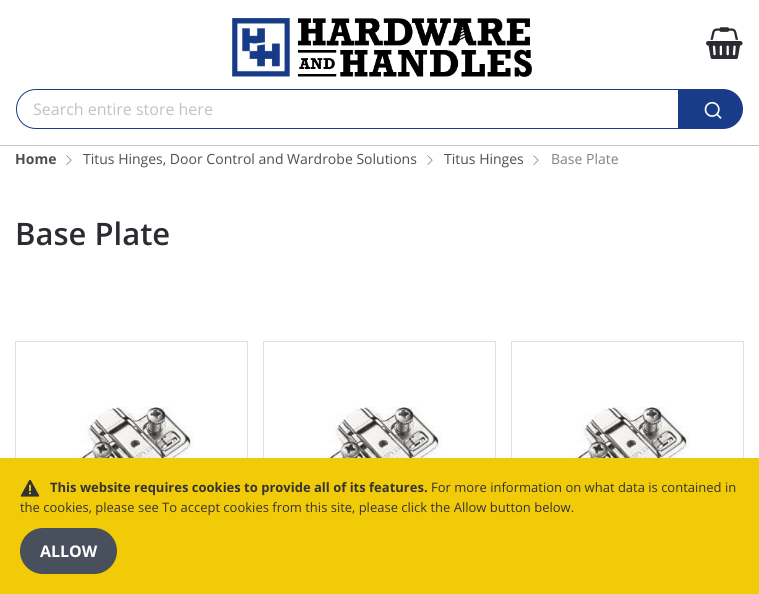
#include <cairo.h>
#include <math.h>
#include <stddef.h>


static void round_rect(cairo_t *cr, double x, double y, double w, double h, double r) {
    cairo_new_sub_path(cr);
    cairo_arc(cr, x + w - r, y + h - r, r, 0, M_PI / 2);
    cairo_arc(cr, x + r, y + h - r, r, M_PI / 2, M_PI);
    cairo_arc(cr, x + r, y + r, r, M_PI, 1.5 * M_PI);
    cairo_arc(cr, x + w - r, y + r, r, 1.5 * M_PI, 2 * M_PI);
    cairo_close_path(cr);
}

static void picture(cairo_t *cr, const char *path, double x, double y, double w, double h) {
    cairo_surface_t *image = cairo_image_surface_create_from_png(path);
    cairo_save(cr);
    cairo_set_source_surface(cr, image, x, y);
    cairo_rectangle(cr, x, y, w, h);
    cairo_fill(cr);
    cairo_restore(cr);
    cairo_surface_destroy(image);
}

int main(void) {
    cairo_surface_t *surface = cairo_image_surface_create(CAIRO_FORMAT_RGB24, 759, 594);
    cairo_t *cr = cairo_create(surface);
    cairo_font_options_t *options = cairo_font_options_create();
    cairo_font_options_set_hint_metrics(options, CAIRO_HINT_METRICS_OFF);
    cairo_font_options_set_hint_style(options, CAIRO_HINT_STYLE_NONE);
    cairo_set_font_options(cr, options);
    cairo_set_miter_limit(cr, 4);
    cairo_set_source_rgb(cr, 1, 1, 1);
    cairo_paint(cr);
    cairo_set_source_rgb(cr, 0.761, 0.761, 0.761);
    cairo_rectangle(cr, 0, 145, 759, 1);
    cairo_fill(cr);
    picture(cr, "img1.png", 232, 18, 300, 59);
    picture(cr, "img2.png", 706, 27, 37, 32);
    cairo_new_path(cr);
    cairo_move_to(cr, 36, 89.5);
    cairo_line_to(cr, 678.5, 89.5);
    cairo_line_to(cr, 678.5, 128.5);
    cairo_line_to(cr, 36, 128.5);
    cairo_curve_to(cr, 25, 128.5, 16.5, 120, 16.5, 109);
    cairo_curve_to(cr, 16.5, 98, 25, 89.5, 36, 89.5);
    cairo_close_path(cr);
    cairo_set_source_rgb(cr, 0.094, 0.235, 0.533);
    cairo_set_line_width(cr, 1);
    cairo_stroke(cr);
    cairo_select_font_face(cr, "Open Sans", CAIRO_FONT_SLANT_NORMAL, CAIRO_FONT_WEIGHT_NORMAL);
    cairo_set_font_size(cr, 16);
    cairo_set_source_rgb(cr, 0.761, 0.761, 0.761);
    cairo_move_to(cr, 33, 115);
    cairo_show_text(cr, "Search entire store here");
    cairo_set_source_rgb(cr, 0.094, 0.235, 0.533);
    cairo_new_path(cr);
    cairo_move_to(cr, 679, 89);
    cairo_line_to(cr, 723, 89);
    cairo_curve_to(cr, 734, 89, 743, 98, 743, 109);
    cairo_curve_to(cr, 743, 120, 734, 129, 723, 129);
    cairo_line_to(cr, 679, 129);
    cairo_close_path(cr);
    cairo_fill(cr);
    picture(cr, "img3.png", 704, 101, 18, 18);
    cairo_select_font_face(cr, "Open Sans", CAIRO_FONT_SLANT_NORMAL, CAIRO_FONT_WEIGHT_BOLD);
    cairo_set_font_size(cr, 14);
    cairo_set_source_rgb(cr, 0.31, 0.31, 0.31);
    cairo_move_to(cr, 15, 164);
    cairo_show_text(cr, "Home");
    picture(cr, "img4.png", 66, 155, 6, 10);
    cairo_select_font_face(cr, "Open Sans", CAIRO_FONT_SLANT_NORMAL, CAIRO_FONT_WEIGHT_NORMAL);
    cairo_move_to(cr, 83, 164);
    cairo_show_text(cr, "Titus Hinges, Door Control and Wardrobe Solutions");
    picture(cr, "img4.png", 427, 155, 6, 10);
    cairo_move_to(cr, 444, 164);
    cairo_show_text(cr, "Titus Hinges");
    picture(cr, "img4.png", 533, 155, 6, 10);
    cairo_set_source_rgb(cr, 0.51, 0.51, 0.51);
    cairo_move_to(cr, 551, 164);
    cairo_show_text(cr, "Base Plate");
    cairo_select_font_face(cr, "Open Sans SemiBold", CAIRO_FONT_SLANT_NORMAL, CAIRO_FONT_WEIGHT_NORMAL);
    cairo_set_font_size(cr, 31);
    cairo_set_source_rgb(cr, 0.169, 0.173, 0.192);
    cairo_move_to(cr, 15, 245);
    cairo_show_text(cr, "Base Plate");
    cairo_rectangle(cr, 15.5, 341.5, 232, 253);
    cairo_set_source_rgb(cr, 0.878, 0.878, 0.878);
    cairo_stroke(cr);
    picture(cr, "img5.png", 75, 407, 119, 51);
    cairo_rectangle(cr, 263.5, 341.5, 232, 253);
    cairo_stroke(cr);
    picture(cr, "img5.png", 323, 407, 119, 51);
    cairo_rectangle(cr, 511.5, 341.5, 232, 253);
    cairo_stroke(cr);
    picture(cr, "img5.png", 571, 407, 119, 51);
    cairo_set_source_rgb(cr, 0.949, 0.796, 0.035);
    cairo_rectangle(cr, 0, 458, 759, 136);
    cairo_fill(cr);
    picture(cr, "img6.png", 20, 480, 20, 17);
    cairo_select_font_face(cr, "Open Sans", CAIRO_FONT_SLANT_NORMAL, CAIRO_FONT_WEIGHT_BOLD);
    cairo_set_font_size(cr, 13);
    cairo_set_source_rgb(cr, 0.2, 0.2, 0.2);
    cairo_move_to(cr, 50, 492);
    cairo_show_text(cr, "This website requires cookies to provide all of its features.");
    cairo_select_font_face(cr, "Open Sans", CAIRO_FONT_SLANT_NORMAL, CAIRO_FONT_WEIGHT_NORMAL);
    cairo_move_to(cr, 431, 492);
    cairo_show_text(cr, "For more information on what data is contained in");
    cairo_move_to(cr, 20, 512);
    cairo_show_text(cr, "the cookies, please see To accept cookies from this site, please click the Allow button below.");
    cairo_set_source_rgb(cr, 0.282, 0.31, 0.365);
    round_rect(cr, 20, 528, 97, 46, 23);
    cairo_fill(cr);
    cairo_select_font_face(cr, "Open Sans", CAIRO_FONT_SLANT_NORMAL, CAIRO_FONT_WEIGHT_BOLD);
    cairo_set_font_size(cr, 16);
    cairo_set_source_rgb(cr, 1, 1, 1);
    cairo_move_to(cr, 40, 557);
    cairo_show_text(cr, "ALLOW");
    cairo_surface_write_to_png(surface, "page.png");
    cairo_font_options_destroy(options);
    cairo_destroy(cr);
    cairo_surface_destroy(surface);
    return 0;
}
